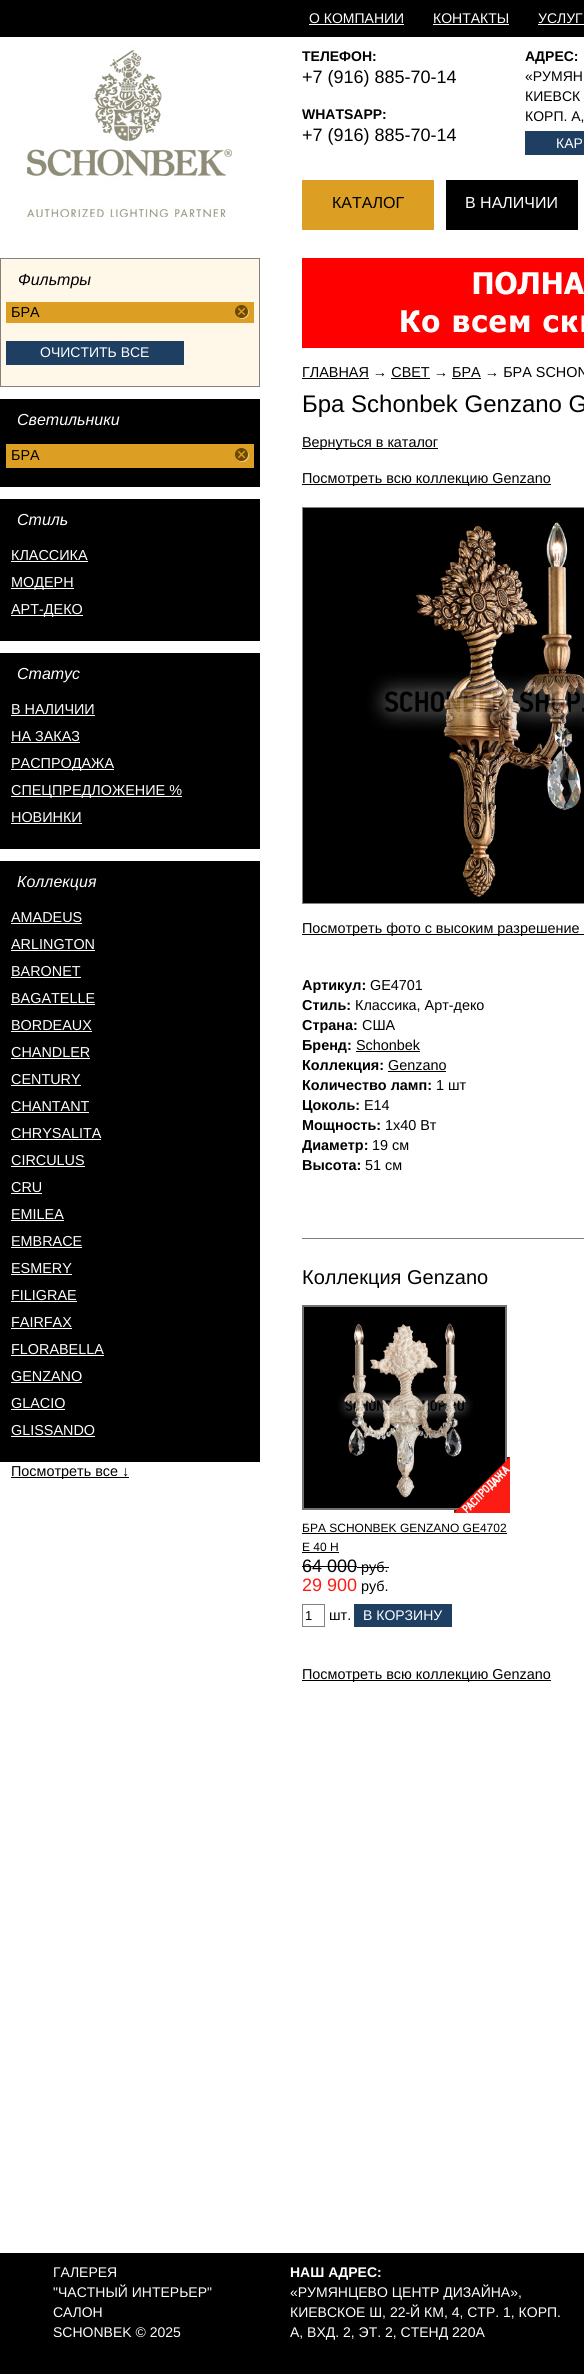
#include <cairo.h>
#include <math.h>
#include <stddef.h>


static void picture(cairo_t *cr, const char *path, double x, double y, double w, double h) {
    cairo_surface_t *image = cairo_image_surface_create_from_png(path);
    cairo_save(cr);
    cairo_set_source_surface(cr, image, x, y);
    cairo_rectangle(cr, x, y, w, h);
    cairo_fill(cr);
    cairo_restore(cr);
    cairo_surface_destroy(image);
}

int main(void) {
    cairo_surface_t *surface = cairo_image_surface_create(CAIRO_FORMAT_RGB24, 584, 2374);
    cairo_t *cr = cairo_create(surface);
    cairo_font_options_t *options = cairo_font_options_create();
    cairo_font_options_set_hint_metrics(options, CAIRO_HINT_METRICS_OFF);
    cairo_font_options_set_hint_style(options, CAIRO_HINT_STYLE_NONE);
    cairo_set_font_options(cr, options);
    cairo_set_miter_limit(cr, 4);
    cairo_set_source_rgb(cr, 1, 1, 1);
    cairo_paint(cr);
    cairo_set_source_rgb(cr, 0, 0, 0);
    cairo_rectangle(cr, 0, 0, 584, 37);
    cairo_fill(cr);
    cairo_select_font_face(cr, "Liberation Sans", CAIRO_FONT_SLANT_NORMAL, CAIRO_FONT_WEIGHT_NORMAL);
    cairo_set_font_size(cr, 14);
    cairo_set_source_rgb(cr, 1, 1, 1);
    cairo_move_to(cr, 309, 23);
    cairo_show_text(cr, "О КОМПАНИИ");
    cairo_rectangle(cr, 309, 24, 95, 1);
    cairo_fill(cr);
    cairo_move_to(cr, 433, 23);
    cairo_show_text(cr, "КОНТАКТЫ");
    cairo_rectangle(cr, 433, 24, 76, 1);
    cairo_fill(cr);
    cairo_move_to(cr, 538, 23);
    cairo_show_text(cr, "УСЛУГ");
    cairo_rectangle(cr, 538, 24, 46, 1);
    cairo_fill(cr);
    picture(cr, "img1.png", 24, 46, 208, 175);
    cairo_select_font_face(cr, "Liberation Sans", CAIRO_FONT_SLANT_NORMAL, CAIRO_FONT_WEIGHT_BOLD);
    cairo_set_source_rgb(cr, 0, 0, 0);
    cairo_move_to(cr, 302, 61);
    cairo_show_text(cr, "ТЕЛЕФОН:");
    cairo_select_font_face(cr, "Liberation Sans", CAIRO_FONT_SLANT_NORMAL, CAIRO_FONT_WEIGHT_NORMAL);
    cairo_set_font_size(cr, 18);
    cairo_move_to(cr, 302, 83);
    cairo_show_text(cr, "+7 (916) 885-70-14");
    cairo_select_font_face(cr, "Liberation Sans", CAIRO_FONT_SLANT_NORMAL, CAIRO_FONT_WEIGHT_BOLD);
    cairo_set_font_size(cr, 14);
    cairo_move_to(cr, 302, 119);
    cairo_show_text(cr, "WHATSAPP:");
    cairo_select_font_face(cr, "Liberation Sans", CAIRO_FONT_SLANT_NORMAL, CAIRO_FONT_WEIGHT_NORMAL);
    cairo_set_font_size(cr, 18);
    cairo_move_to(cr, 302, 141);
    cairo_show_text(cr, "+7 (916) 885-70-14");
    cairo_select_font_face(cr, "Liberation Sans", CAIRO_FONT_SLANT_NORMAL, CAIRO_FONT_WEIGHT_BOLD);
    cairo_set_font_size(cr, 14);
    cairo_move_to(cr, 525, 61);
    cairo_show_text(cr, "АДРЕС:");
    cairo_select_font_face(cr, "Liberation Sans", CAIRO_FONT_SLANT_NORMAL, CAIRO_FONT_WEIGHT_NORMAL);
    cairo_move_to(cr, 525, 81);
    cairo_show_text(cr, "«РУМЯН");
    cairo_move_to(cr, 525, 101);
    cairo_show_text(cr, "КИЕВСК");
    cairo_move_to(cr, 525, 121);
    cairo_show_text(cr, "КОРП. А,");
    cairo_set_source_rgb(cr, 0.118, 0.243, 0.384);
    cairo_rectangle(cr, 525, 131, 59, 24);
    cairo_fill(cr);
    cairo_set_source_rgb(cr, 1, 1, 1);
    cairo_move_to(cr, 556, 148);
    cairo_show_text(cr, "КАР");
    cairo_set_source_rgb(cr, 0.867, 0.624, 0.137);
    cairo_rectangle(cr, 302, 180, 132, 50);
    cairo_fill(cr);
    cairo_set_font_size(cr, 16);
    cairo_set_source_rgb(cr, 0, 0, 0);
    cairo_move_to(cr, 332, 208);
    cairo_show_text(cr, "КАТАЛОГ");
    cairo_rectangle(cr, 446, 180, 132, 50);
    cairo_fill(cr);
    cairo_set_source_rgb(cr, 1, 1, 1);
    cairo_move_to(cr, 465, 208);
    cairo_show_text(cr, "В НАЛИЧИИ");
    cairo_set_source_rgb(cr, 1, 0.969, 0.914);
    cairo_rectangle(cr, 1, 259, 258, 127);
    cairo_fill(cr);
    cairo_set_source_rgb(cr, 0.522, 0.506, 0.478);
    cairo_rectangle(cr, 0, 258, 260, 1);
    cairo_fill(cr);
    cairo_rectangle(cr, 259, 258, 1, 129);
    cairo_fill(cr);
    cairo_rectangle(cr, 0, 258, 1, 68);
    cairo_fill(cr);
    cairo_select_font_face(cr, "Liberation Sans", CAIRO_FONT_SLANT_ITALIC, CAIRO_FONT_WEIGHT_NORMAL);
    cairo_set_source_rgb(cr, 0, 0, 0);
    cairo_move_to(cr, 18, 285);
    cairo_show_text(cr, "Фильтры");
    cairo_set_source_rgb(cr, 0.867, 0.624, 0.137);
    cairo_rectangle(cr, 6, 302, 248, 21);
    cairo_fill(cr);
    cairo_select_font_face(cr, "Liberation Sans", CAIRO_FONT_SLANT_NORMAL, CAIRO_FONT_WEIGHT_NORMAL);
    cairo_set_font_size(cr, 14.4);
    cairo_set_source_rgb(cr, 0, 0, 0);
    cairo_move_to(cr, 11, 317);
    cairo_show_text(cr, "БРА");
    picture(cr, "img2.png", 235, 305, 14, 14);
    cairo_set_source_rgb(cr, 0.522, 0.506, 0.478);
    cairo_rectangle(cr, 0, 386, 260, 1);
    cairo_fill(cr);
    cairo_rectangle(cr, 0, 326, 1, 61);
    cairo_fill(cr);
    cairo_set_source_rgb(cr, 0.118, 0.243, 0.384);
    cairo_rectangle(cr, 6, 341, 178, 24);
    cairo_fill(cr);
    cairo_set_font_size(cr, 14);
    cairo_set_source_rgb(cr, 1, 1, 1);
    cairo_move_to(cr, 40, 357);
    cairo_show_text(cr, "ОЧИСТИТЬ ВСЕ");
    cairo_set_source_rgb(cr, 0, 0, 0);
    cairo_rectangle(cr, 0, 399, 260, 88);
    cairo_fill(cr);
    cairo_select_font_face(cr, "Liberation Sans", CAIRO_FONT_SLANT_ITALIC, CAIRO_FONT_WEIGHT_NORMAL);
    cairo_set_font_size(cr, 16);
    cairo_set_source_rgb(cr, 1, 1, 1);
    cairo_move_to(cr, 17, 425);
    cairo_show_text(cr, "Светильники");
    cairo_set_source_rgb(cr, 0.867, 0.624, 0.137);
    cairo_rectangle(cr, 6, 444, 248, 24);
    cairo_fill(cr);
    cairo_select_font_face(cr, "Liberation Sans", CAIRO_FONT_SLANT_NORMAL, CAIRO_FONT_WEIGHT_NORMAL);
    cairo_set_font_size(cr, 14.4);
    cairo_set_source_rgb(cr, 0, 0, 0);
    cairo_move_to(cr, 11, 460);
    cairo_show_text(cr, "БРА");
    picture(cr, "img2.png", 235, 448, 14, 14);
    cairo_rectangle(cr, 0, 499, 260, 142);
    cairo_fill(cr);
    cairo_select_font_face(cr, "Liberation Sans", CAIRO_FONT_SLANT_ITALIC, CAIRO_FONT_WEIGHT_NORMAL);
    cairo_set_font_size(cr, 16);
    cairo_set_source_rgb(cr, 1, 1, 1);
    cairo_move_to(cr, 17, 525);
    cairo_show_text(cr, "Стиль");
    cairo_select_font_face(cr, "Liberation Sans", CAIRO_FONT_SLANT_NORMAL, CAIRO_FONT_WEIGHT_NORMAL);
    cairo_set_font_size(cr, 14.4);
    cairo_move_to(cr, 11, 560);
    cairo_show_text(cr, "КЛАССИКА");
    cairo_rectangle(cr, 11, 561, 77, 1);
    cairo_fill(cr);
    cairo_rectangle(cr, 11, 588, 63, 1);
    cairo_fill(cr);
    cairo_move_to(cr, 11, 587);
    cairo_show_text(cr, "МОДЕРН");
    cairo_rectangle(cr, 11, 615, 72, 1);
    cairo_fill(cr);
    cairo_move_to(cr, 11, 614);
    cairo_show_text(cr, "АРТ-ДЕКО");
    cairo_set_source_rgb(cr, 0, 0, 0);
    cairo_rectangle(cr, 0, 653, 260, 196);
    cairo_fill(cr);
    cairo_select_font_face(cr, "Liberation Sans", CAIRO_FONT_SLANT_ITALIC, CAIRO_FONT_WEIGHT_NORMAL);
    cairo_set_font_size(cr, 16);
    cairo_set_source_rgb(cr, 1, 1, 1);
    cairo_move_to(cr, 17, 679);
    cairo_show_text(cr, "Статус");
    cairo_select_font_face(cr, "Liberation Sans", CAIRO_FONT_SLANT_NORMAL, CAIRO_FONT_WEIGHT_NORMAL);
    cairo_set_font_size(cr, 14.4);
    cairo_move_to(cr, 11, 714);
    cairo_show_text(cr, "В НАЛИЧИИ");
    cairo_rectangle(cr, 11, 715, 84, 1);
    cairo_fill(cr);
    cairo_move_to(cr, 11, 741);
    cairo_show_text(cr, "НА ЗАКАЗ");
    cairo_rectangle(cr, 11, 742, 69, 1);
    cairo_fill(cr);
    cairo_rectangle(cr, 11, 769, 103, 1);
    cairo_fill(cr);
    cairo_move_to(cr, 11, 768);
    cairo_show_text(cr, "РАСПРОДАЖА");
    cairo_rectangle(cr, 11, 796, 171, 1);
    cairo_fill(cr);
    cairo_move_to(cr, 11, 795);
    cairo_show_text(cr, "СПЕЦПРЕДЛОЖЕНИЕ %");
    cairo_move_to(cr, 11, 822);
    cairo_show_text(cr, "НОВИНКИ");
    cairo_rectangle(cr, 11, 823, 71, 1);
    cairo_fill(cr);
    cairo_set_source_rgb(cr, 0, 0, 0);
    cairo_rectangle(cr, 0, 861, 260, 601);
    cairo_fill(cr);
    cairo_select_font_face(cr, "Liberation Sans", CAIRO_FONT_SLANT_ITALIC, CAIRO_FONT_WEIGHT_NORMAL);
    cairo_set_font_size(cr, 16);
    cairo_set_source_rgb(cr, 1, 1, 1);
    cairo_move_to(cr, 17, 887);
    cairo_show_text(cr, "Коллекция");
    cairo_select_font_face(cr, "Liberation Sans", CAIRO_FONT_SLANT_NORMAL, CAIRO_FONT_WEIGHT_NORMAL);
    cairo_set_font_size(cr, 14.4);
    cairo_move_to(cr, 11, 922);
    cairo_show_text(cr, "AMADEUS");
    cairo_rectangle(cr, 11, 923, 71, 1);
    cairo_fill(cr);
    cairo_move_to(cr, 11, 949);
    cairo_show_text(cr, "ARLINGTON");
    cairo_rectangle(cr, 11, 950, 84, 1);
    cairo_fill(cr);
    cairo_move_to(cr, 11, 976);
    cairo_show_text(cr, "BARONET");
    cairo_rectangle(cr, 11, 977, 70, 1);
    cairo_fill(cr);
    cairo_move_to(cr, 11, 1003);
    cairo_show_text(cr, "BAGATELLE");
    cairo_rectangle(cr, 11, 1004, 84, 1);
    cairo_fill(cr);
    cairo_move_to(cr, 11, 1030);
    cairo_show_text(cr, "BORDEAUX");
    cairo_rectangle(cr, 11, 1031, 81, 1);
    cairo_fill(cr);
    cairo_move_to(cr, 11, 1057);
    cairo_show_text(cr, "CHANDLER");
    cairo_rectangle(cr, 11, 1058, 79, 1);
    cairo_fill(cr);
    cairo_move_to(cr, 11, 1084);
    cairo_show_text(cr, "CENTURY");
    cairo_rectangle(cr, 11, 1085, 70, 1);
    cairo_fill(cr);
    cairo_move_to(cr, 11, 1111);
    cairo_show_text(cr, "CHANTANT");
    cairo_rectangle(cr, 11, 1112, 78, 1);
    cairo_fill(cr);
    cairo_move_to(cr, 11, 1138);
    cairo_show_text(cr, "CHRYSALITA");
    cairo_rectangle(cr, 11, 1139, 90, 1);
    cairo_fill(cr);
    cairo_move_to(cr, 11, 1165);
    cairo_show_text(cr, "CIRCULUS");
    cairo_rectangle(cr, 11, 1166, 74, 1);
    cairo_fill(cr);
    cairo_move_to(cr, 11, 1192);
    cairo_show_text(cr, "CRU");
    cairo_rectangle(cr, 11, 1193, 31, 1);
    cairo_fill(cr);
    cairo_move_to(cr, 11, 1219);
    cairo_show_text(cr, "EMILEA");
    cairo_rectangle(cr, 11, 1220, 53, 1);
    cairo_fill(cr);
    cairo_move_to(cr, 11, 1246);
    cairo_show_text(cr, "EMBRACE");
    cairo_rectangle(cr, 11, 1247, 71, 1);
    cairo_fill(cr);
    cairo_move_to(cr, 11, 1273);
    cairo_show_text(cr, "ESMERY");
    cairo_rectangle(cr, 11, 1274, 61, 1);
    cairo_fill(cr);
    cairo_move_to(cr, 11, 1300);
    cairo_show_text(cr, "FILIGRAE");
    cairo_rectangle(cr, 11, 1301, 66, 1);
    cairo_fill(cr);
    cairo_move_to(cr, 11, 1327);
    cairo_show_text(cr, "FAIRFAX");
    cairo_rectangle(cr, 11, 1328, 61, 1);
    cairo_fill(cr);
    cairo_move_to(cr, 11, 1354);
    cairo_show_text(cr, "FLORABELLA");
    cairo_rectangle(cr, 11, 1355, 93, 1);
    cairo_fill(cr);
    cairo_move_to(cr, 11, 1381);
    cairo_show_text(cr, "GENZANO");
    cairo_rectangle(cr, 11, 1382, 71, 1);
    cairo_fill(cr);
    cairo_move_to(cr, 11, 1408);
    cairo_show_text(cr, "GLACIO");
    cairo_rectangle(cr, 11, 1409, 54, 1);
    cairo_fill(cr);
    cairo_move_to(cr, 11, 1435);
    cairo_show_text(cr, "GLISSANDO");
    cairo_rectangle(cr, 11, 1436, 84, 1);
    cairo_fill(cr);
    cairo_set_source_rgb(cr, 0, 0, 0);
    cairo_rectangle(cr, 11, 1477, 118, 1);
    cairo_fill(cr);
    cairo_move_to(cr, 11, 1476);
    cairo_show_text(cr, "Посмотреть все ↓");
    picture(cr, "img3.png", 302, 258, 282, 90);
    cairo_move_to(cr, 302, 377);
    cairo_show_text(cr, "ГЛАВНАЯ → СВЕТ → БРА → БРА SCHON");
    cairo_rectangle(cr, 302, 378, 67, 1);
    cairo_fill(cr);
    cairo_rectangle(cr, 391, 378, 39, 1);
    cairo_fill(cr);
    cairo_rectangle(cr, 452, 378, 29, 1);
    cairo_fill(cr);
    cairo_set_font_size(cr, 24);
    cairo_move_to(cr, 302, 412);
    cairo_show_text(cr, "Бра Schonbek Genzano G");
    cairo_rectangle(cr, 302, 448, 136, 1);
    cairo_fill(cr);
    cairo_set_font_size(cr, 14.4);
    cairo_move_to(cr, 302, 447);
    cairo_show_text(cr, "Вернуться в каталог");
    cairo_rectangle(cr, 302, 484, 249, 1);
    cairo_fill(cr);
    cairo_move_to(cr, 302, 483);
    cairo_show_text(cr, "Посмотреть всю коллекцию Genzano");
    cairo_rectangle(cr, 302.5, 507.5, 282, 396);
    cairo_set_source_rgb(cr, 0.522, 0.506, 0.478);
    cairo_set_line_width(cr, 1);
    cairo_stroke(cr);
    picture(cr, "img4.png", 303, 508, 281, 395);
    cairo_set_source_rgb(cr, 0, 0, 0);
    cairo_rectangle(cr, 302, 934, 282, 1);
    cairo_fill(cr);
    cairo_move_to(cr, 302, 933);
    cairo_show_text(cr, "Посмотреть фото с высоким разрешение");
    cairo_select_font_face(cr, "Liberation Sans", CAIRO_FONT_SLANT_NORMAL, CAIRO_FONT_WEIGHT_BOLD);
    cairo_move_to(cr, 302, 990);
    cairo_show_text(cr, "Артикул:");
    cairo_select_font_face(cr, "Liberation Sans", CAIRO_FONT_SLANT_NORMAL, CAIRO_FONT_WEIGHT_NORMAL);
    cairo_move_to(cr, 370, 990);
    cairo_show_text(cr, "GE4701");
    cairo_select_font_face(cr, "Liberation Sans", CAIRO_FONT_SLANT_NORMAL, CAIRO_FONT_WEIGHT_BOLD);
    cairo_move_to(cr, 302, 1010);
    cairo_show_text(cr, "Стиль:");
    cairo_select_font_face(cr, "Liberation Sans", CAIRO_FONT_SLANT_NORMAL, CAIRO_FONT_WEIGHT_NORMAL);
    cairo_move_to(cr, 355, 1010);
    cairo_show_text(cr, "Классика, Арт-деко");
    cairo_select_font_face(cr, "Liberation Sans", CAIRO_FONT_SLANT_NORMAL, CAIRO_FONT_WEIGHT_BOLD);
    cairo_move_to(cr, 302, 1030);
    cairo_show_text(cr, "Страна:");
    cairo_select_font_face(cr, "Liberation Sans", CAIRO_FONT_SLANT_NORMAL, CAIRO_FONT_WEIGHT_NORMAL);
    cairo_move_to(cr, 362, 1030);
    cairo_show_text(cr, "США");
    cairo_select_font_face(cr, "Liberation Sans", CAIRO_FONT_SLANT_NORMAL, CAIRO_FONT_WEIGHT_BOLD);
    cairo_move_to(cr, 302, 1050);
    cairo_show_text(cr, "Бренд:");
    cairo_select_font_face(cr, "Liberation Sans", CAIRO_FONT_SLANT_NORMAL, CAIRO_FONT_WEIGHT_NORMAL);
    cairo_move_to(cr, 356, 1050);
    cairo_show_text(cr, "Schonbek");
    cairo_rectangle(cr, 356, 1051, 64, 1);
    cairo_fill(cr);
    cairo_select_font_face(cr, "Liberation Sans", CAIRO_FONT_SLANT_NORMAL, CAIRO_FONT_WEIGHT_BOLD);
    cairo_move_to(cr, 302, 1070);
    cairo_show_text(cr, "Коллекция:");
    cairo_select_font_face(cr, "Liberation Sans", CAIRO_FONT_SLANT_NORMAL, CAIRO_FONT_WEIGHT_NORMAL);
    cairo_move_to(cr, 388, 1070);
    cairo_show_text(cr, "Genzano");
    cairo_rectangle(cr, 388, 1071, 58, 1);
    cairo_fill(cr);
    cairo_select_font_face(cr, "Liberation Sans", CAIRO_FONT_SLANT_NORMAL, CAIRO_FONT_WEIGHT_BOLD);
    cairo_move_to(cr, 302, 1090);
    cairo_show_text(cr, "Количество ламп:");
    cairo_select_font_face(cr, "Liberation Sans", CAIRO_FONT_SLANT_NORMAL, CAIRO_FONT_WEIGHT_NORMAL);
    cairo_move_to(cr, 436, 1090);
    cairo_show_text(cr, "1 шт");
    cairo_select_font_face(cr, "Liberation Sans", CAIRO_FONT_SLANT_NORMAL, CAIRO_FONT_WEIGHT_BOLD);
    cairo_move_to(cr, 302, 1110);
    cairo_show_text(cr, "Цоколь:");
    cairo_select_font_face(cr, "Liberation Sans", CAIRO_FONT_SLANT_NORMAL, CAIRO_FONT_WEIGHT_NORMAL);
    cairo_move_to(cr, 364, 1110);
    cairo_show_text(cr, "E14");
    cairo_select_font_face(cr, "Liberation Sans", CAIRO_FONT_SLANT_NORMAL, CAIRO_FONT_WEIGHT_BOLD);
    cairo_move_to(cr, 302, 1130);
    cairo_show_text(cr, "Мощность:");
    cairo_select_font_face(cr, "Liberation Sans", CAIRO_FONT_SLANT_NORMAL, CAIRO_FONT_WEIGHT_NORMAL);
    cairo_move_to(cr, 385, 1130);
    cairo_show_text(cr, "1x40 Вт");
    cairo_select_font_face(cr, "Liberation Sans", CAIRO_FONT_SLANT_NORMAL, CAIRO_FONT_WEIGHT_BOLD);
    cairo_move_to(cr, 302, 1150);
    cairo_show_text(cr, "Диаметр:");
    cairo_select_font_face(cr, "Liberation Sans", CAIRO_FONT_SLANT_NORMAL, CAIRO_FONT_WEIGHT_NORMAL);
    cairo_move_to(cr, 372, 1150);
    cairo_show_text(cr, "19 см");
    cairo_select_font_face(cr, "Liberation Sans", CAIRO_FONT_SLANT_NORMAL, CAIRO_FONT_WEIGHT_BOLD);
    cairo_move_to(cr, 302, 1170);
    cairo_show_text(cr, "Высота:");
    cairo_select_font_face(cr, "Liberation Sans", CAIRO_FONT_SLANT_NORMAL, CAIRO_FONT_WEIGHT_NORMAL);
    cairo_move_to(cr, 365, 1170);
    cairo_show_text(cr, "51 см");
    cairo_set_source_rgb(cr, 0.522, 0.506, 0.478);
    cairo_rectangle(cr, 302, 1238, 282, 1);
    cairo_fill(cr);
    cairo_set_font_size(cr, 20);
    cairo_set_source_rgb(cr, 0, 0, 0);
    cairo_move_to(cr, 302, 1284);
    cairo_show_text(cr, "Коллекция Genzano");
    cairo_rectangle(cr, 303, 1306, 203, 203);
    cairo_set_source_rgb(cr, 0.439, 0.439, 0.439);
    cairo_set_line_width(cr, 2);
    cairo_stroke(cr);
    picture(cr, "img5.png", 304, 1307, 201, 201);
    picture(cr, "img6.png", 454, 1457, 56, 56);
    cairo_set_font_size(cr, 12);
    cairo_set_source_rgb(cr, 0, 0, 0);
    cairo_move_to(cr, 302, 1532);
    cairo_show_text(cr, "БРА SCHONBEK GENZANO GE4702");
    cairo_rectangle(cr, 302, 1533, 205, 1);
    cairo_fill(cr);
    cairo_move_to(cr, 302, 1551);
    cairo_show_text(cr, "Е 40 H");
    cairo_rectangle(cr, 302, 1552, 37, 1);
    cairo_fill(cr);
    cairo_set_font_size(cr, 18);
    cairo_move_to(cr, 302, 1572);
    cairo_show_text(cr, "64 000");
    cairo_rectangle(cr, 302, 1566, 55, 1);
    cairo_fill(cr);
    cairo_set_font_size(cr, 14.4);
    cairo_move_to(cr, 361, 1572);
    cairo_show_text(cr, "руб.");
    cairo_rectangle(cr, 357, 1567, 32, 1);
    cairo_fill(cr);
    cairo_set_font_size(cr, 18);
    cairo_set_source_rgb(cr, 0.988, 0.11, 0.078);
    cairo_move_to(cr, 302, 1591);
    cairo_show_text(cr, "29 900");
    cairo_set_font_size(cr, 14.4);
    cairo_set_source_rgb(cr, 0, 0, 0);
    cairo_move_to(cr, 361, 1591);
    cairo_show_text(cr, "руб.");
    cairo_rectangle(cr, 302.5, 1604.5, 22, 22);
    cairo_set_source_rgb(cr, 0.522, 0.506, 0.478);
    cairo_set_line_width(cr, 1);
    cairo_stroke(cr);
    cairo_set_font_size(cr, 13);
    cairo_set_source_rgb(cr, 0, 0, 0);
    cairo_move_to(cr, 305, 1620);
    cairo_show_text(cr, "1");
    cairo_set_font_size(cr, 14.4);
    cairo_move_to(cr, 329, 1620);
    cairo_show_text(cr, "шт.");
    cairo_set_source_rgb(cr, 0.118, 0.243, 0.384);
    cairo_rectangle(cr, 354, 1604, 98, 23);
    cairo_fill(cr);
    cairo_set_font_size(cr, 14);
    cairo_set_source_rgb(cr, 1, 1, 1);
    cairo_move_to(cr, 363, 1620);
    cairo_show_text(cr, "В КОРЗИНУ");
    cairo_set_source_rgb(cr, 0, 0, 0);
    cairo_rectangle(cr, 302, 1680, 249, 1);
    cairo_fill(cr);
    cairo_set_font_size(cr, 14.4);
    cairo_move_to(cr, 302, 1679);
    cairo_show_text(cr, "Посмотреть всю коллекцию Genzano");
    cairo_rectangle(cr, 0, 2253, 584, 121);
    cairo_fill(cr);
    cairo_set_font_size(cr, 14);
    cairo_set_source_rgb(cr, 1, 1, 1);
    cairo_move_to(cr, 53, 2277);
    cairo_show_text(cr, "ГАЛЕРЕЯ");
    cairo_move_to(cr, 53, 2297);
    cairo_show_text(cr, "\"ЧАСТНЫЙ ИНТЕРЬЕР\"");
    cairo_move_to(cr, 53, 2317);
    cairo_show_text(cr, "САЛОН");
    cairo_move_to(cr, 53, 2337);
    cairo_show_text(cr, "SCHONBEK © 2025");
    cairo_select_font_face(cr, "Liberation Sans", CAIRO_FONT_SLANT_NORMAL, CAIRO_FONT_WEIGHT_BOLD);
    cairo_move_to(cr, 290, 2277);
    cairo_show_text(cr, "НАШ АДРЕС:");
    cairo_select_font_face(cr, "Liberation Sans", CAIRO_FONT_SLANT_NORMAL, CAIRO_FONT_WEIGHT_NORMAL);
    cairo_move_to(cr, 290, 2297);
    cairo_show_text(cr, "«РУМЯНЦЕВО ЦЕНТР ДИЗАЙНА»,");
    cairo_move_to(cr, 290, 2317);
    cairo_show_text(cr, "КИЕВСКОЕ Ш, 22-Й КМ, 4, СТР. 1, КОРП.");
    cairo_move_to(cr, 290, 2337);
    cairo_show_text(cr, "А, ВХД. 2, ЭТ. 2, СТЕНД 220А");
    cairo_surface_write_to_png(surface, "page.png");
    cairo_font_options_destroy(options);
    cairo_destroy(cr);
    cairo_surface_destroy(surface);
    return 0;
}
